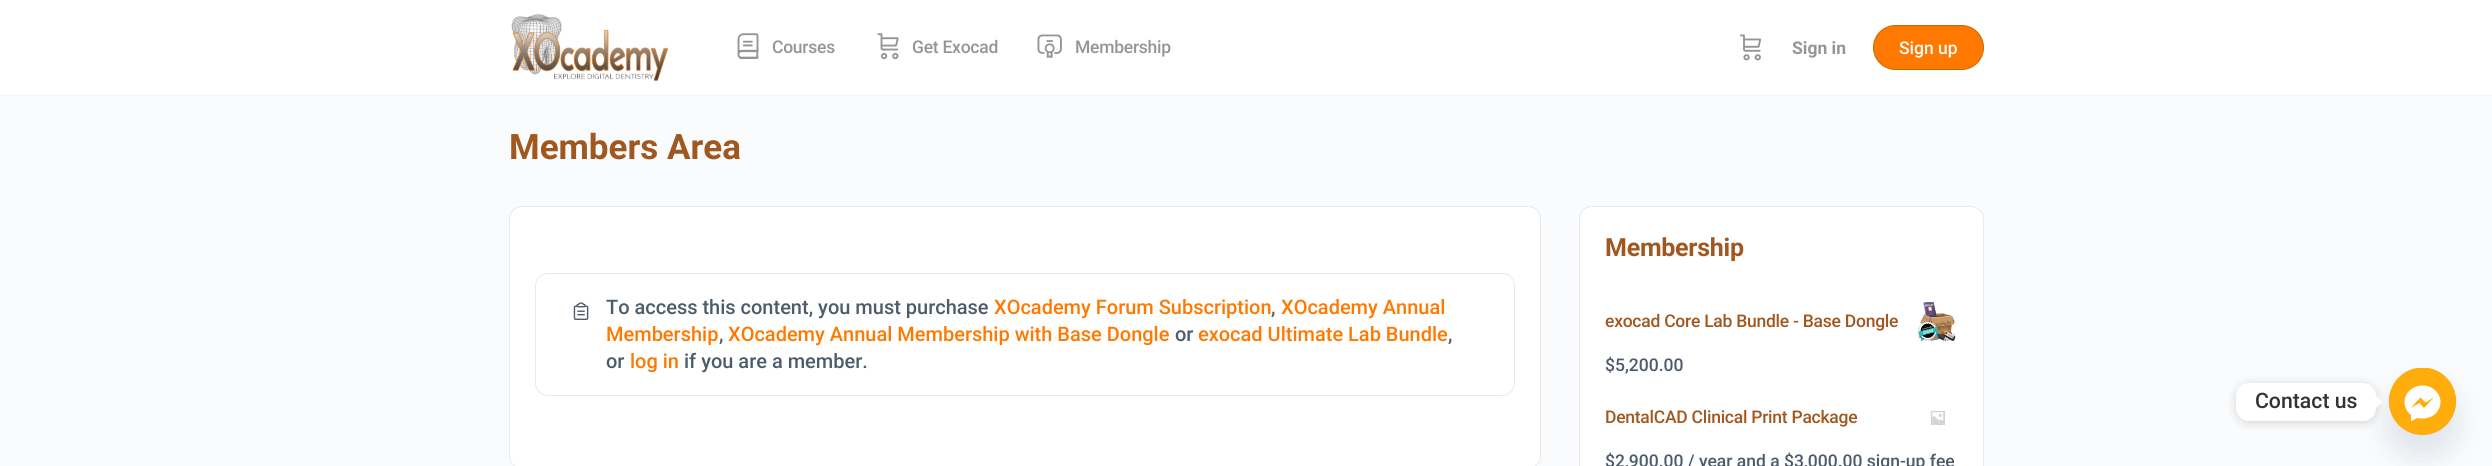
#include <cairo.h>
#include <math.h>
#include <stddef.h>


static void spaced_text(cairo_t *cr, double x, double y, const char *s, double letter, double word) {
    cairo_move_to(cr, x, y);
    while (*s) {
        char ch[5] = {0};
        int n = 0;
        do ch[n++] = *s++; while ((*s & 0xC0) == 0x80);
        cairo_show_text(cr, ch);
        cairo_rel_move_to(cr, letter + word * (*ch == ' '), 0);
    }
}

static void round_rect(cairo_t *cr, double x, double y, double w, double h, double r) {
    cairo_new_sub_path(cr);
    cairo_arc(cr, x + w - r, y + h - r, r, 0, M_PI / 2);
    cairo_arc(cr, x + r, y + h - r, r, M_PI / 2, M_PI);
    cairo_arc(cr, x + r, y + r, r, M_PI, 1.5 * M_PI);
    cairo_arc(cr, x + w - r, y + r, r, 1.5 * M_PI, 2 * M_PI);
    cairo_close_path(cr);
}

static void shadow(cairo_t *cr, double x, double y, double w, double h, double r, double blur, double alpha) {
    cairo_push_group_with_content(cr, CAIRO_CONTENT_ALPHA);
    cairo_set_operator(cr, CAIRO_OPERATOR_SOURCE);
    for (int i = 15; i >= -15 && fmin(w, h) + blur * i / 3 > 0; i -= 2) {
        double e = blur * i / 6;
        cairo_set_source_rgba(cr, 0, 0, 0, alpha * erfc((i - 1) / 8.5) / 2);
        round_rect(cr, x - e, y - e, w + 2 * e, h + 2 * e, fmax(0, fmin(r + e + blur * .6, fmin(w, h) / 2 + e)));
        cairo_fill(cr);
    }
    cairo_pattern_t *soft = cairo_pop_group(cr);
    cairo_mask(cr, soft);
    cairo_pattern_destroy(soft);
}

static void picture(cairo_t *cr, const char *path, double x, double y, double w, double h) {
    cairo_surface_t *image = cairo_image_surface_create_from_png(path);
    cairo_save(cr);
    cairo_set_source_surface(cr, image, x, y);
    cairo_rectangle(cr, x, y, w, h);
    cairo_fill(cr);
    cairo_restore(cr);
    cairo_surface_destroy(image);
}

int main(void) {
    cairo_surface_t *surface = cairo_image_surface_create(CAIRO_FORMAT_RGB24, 2492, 466);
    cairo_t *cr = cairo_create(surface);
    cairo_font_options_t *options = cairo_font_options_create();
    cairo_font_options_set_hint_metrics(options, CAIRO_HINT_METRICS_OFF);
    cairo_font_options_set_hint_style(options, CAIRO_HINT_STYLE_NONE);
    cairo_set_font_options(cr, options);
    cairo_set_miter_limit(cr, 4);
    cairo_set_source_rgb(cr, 0.98, 0.984, 0.992);
    cairo_paint(cr);
    cairo_set_source_rgb(cr, 0.949, 0.953, 0.965);
    cairo_new_path(cr);
    cairo_move_to(cr, 0, 95);
    cairo_line_to(cr, 0, 96);
    cairo_line_to(cr, 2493, 96);
    cairo_line_to(cr, 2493, 1);
    cairo_line_to(cr, 2492, 1);
    cairo_line_to(cr, 2492, 95);
    cairo_close_path(cr);
    cairo_fill(cr);
    cairo_set_source_rgb(cr, 1, 1, 1);
    cairo_rectangle(cr, 0, 0, 2492, 95);
    cairo_fill(cr);
    picture(cr, "img1.png", 511, 14, 158, 67);
    picture(cr, "img2.png", 737, 33, 22, 26);
    cairo_select_font_face(cr, "Roboto Medium", CAIRO_FONT_SLANT_NORMAL, CAIRO_FONT_WEIGHT_NORMAL);
    cairo_set_font_size(cr, 17.5);
    cairo_set_source_rgb(cr, 0.576, 0.584, 0.592);
    spaced_text(cr, 772, 53, "Courses", -0.25, 0);
    picture(cr, "img3.png", 877, 33, 22, 27);
    spaced_text(cr, 912, 53, "Get Exocad", -0.25, 0);
    picture(cr, "img4.png", 1037, 34, 25, 24);
    spaced_text(cr, 1075, 53, "Membership", -0.25, 0);
    picture(cr, "img5.png", 1740, 34, 22, 27);
    cairo_select_font_face(cr, "Roboto", CAIRO_FONT_SLANT_NORMAL, CAIRO_FONT_WEIGHT_BOLD);
    cairo_move_to(cr, 1792, 54);
    cairo_show_text(cr, "Sign in");
    cairo_set_source_rgb(cr, 1, 0.471, 0);
    round_rect(cr, 1873.5, 25.5, 110, 44, 22);
    cairo_fill_preserve(cr);
    cairo_set_source_rgb(cr, 0.776, 0.416, 0);
    cairo_set_line_width(cr, 1);
    cairo_stroke(cr);
    cairo_select_font_face(cr, "Roboto Medium", CAIRO_FONT_SLANT_NORMAL, CAIRO_FONT_WEIGHT_NORMAL);
    cairo_set_source_rgb(cr, 1, 1, 1);
    cairo_move_to(cr, 1899, 54);
    cairo_show_text(cr, "Sign up");
    cairo_select_font_face(cr, "Roboto", CAIRO_FONT_SLANT_NORMAL, CAIRO_FONT_WEIGHT_BOLD);
    cairo_set_font_size(cr, 35);
    cairo_set_source_rgb(cr, 0.627, 0.341, 0.125);
    cairo_move_to(cr, 509, 159);
    cairo_show_text(cr, "Members Area");
    cairo_set_source_rgb(cr, 1, 1, 1);
    round_rect(cr, 509.5, 206.5, 1031, 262, 12.5);
    cairo_fill_preserve(cr);
    cairo_set_source_rgb(cr, 0.906, 0.914, 0.925);
    cairo_stroke(cr);
    round_rect(cr, 535.5, 273.5, 979, 122, 12.5);
    cairo_stroke(cr);
    picture(cr, "img6.png", 573, 302, 16, 18);
    cairo_select_font_face(cr, "Roboto Medium", CAIRO_FONT_SLANT_NORMAL, CAIRO_FONT_WEIGHT_NORMAL);
    cairo_set_font_size(cr, 20);
    cairo_set_source_rgb(cr, 0.302, 0.361, 0.427);
    cairo_move_to(cr, 606, 314);
    cairo_show_text(cr, "To access this content, you must purchase");
    cairo_set_source_rgb(cr, 1, 0.471, 0);
    cairo_move_to(cr, 994, 314);
    cairo_show_text(cr, "XOcademy Forum Subscription");
    cairo_set_source_rgb(cr, 0.302, 0.361, 0.427);
    cairo_move_to(cr, 1271, 314);
    cairo_show_text(cr, ",");
    cairo_set_source_rgb(cr, 1, 0.471, 0);
    cairo_move_to(cr, 1281, 314);
    cairo_show_text(cr, "XOcademy Annual");
    cairo_move_to(cr, 606, 341);
    cairo_show_text(cr, "Membership");
    cairo_set_source_rgb(cr, 0.302, 0.361, 0.427);
    cairo_move_to(cr, 719, 341);
    cairo_show_text(cr, ",");
    cairo_set_source_rgb(cr, 1, 0.471, 0);
    cairo_move_to(cr, 728, 341);
    cairo_show_text(cr, "XOcademy Annual Membership with Base Dongle");
    cairo_set_source_rgb(cr, 0.302, 0.361, 0.427);
    cairo_move_to(cr, 1175, 341);
    cairo_show_text(cr, "or");
    cairo_set_source_rgb(cr, 1, 0.471, 0);
    cairo_move_to(cr, 1198, 341);
    cairo_show_text(cr, "exocad Ultimate Lab Bundle");
    cairo_set_source_rgb(cr, 0.302, 0.361, 0.427);
    cairo_move_to(cr, 1448, 341);
    cairo_show_text(cr, ",");
    cairo_move_to(cr, 606, 368);
    cairo_show_text(cr, "or");
    cairo_set_source_rgb(cr, 1, 0.471, 0);
    cairo_move_to(cr, 630, 368);
    cairo_show_text(cr, "log in");
    cairo_set_source_rgb(cr, 0.302, 0.361, 0.427);
    cairo_move_to(cr, 684, 368);
    cairo_show_text(cr, "if you are a member.");
    cairo_set_source_rgb(cr, 1, 1, 1);
    round_rect(cr, 1579.5, 206.5, 404, 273, 12.5);
    cairo_fill_preserve(cr);
    cairo_set_source_rgb(cr, 0.906, 0.914, 0.925);
    cairo_stroke(cr);
    cairo_select_font_face(cr, "Roboto", CAIRO_FONT_SLANT_NORMAL, CAIRO_FONT_WEIGHT_BOLD);
    cairo_set_font_size(cr, 25);
    cairo_set_source_rgb(cr, 0.627, 0.341, 0.125);
    spaced_text(cr, 1605, 256, "Membership", -0.25, 0);
    cairo_select_font_face(cr, "Roboto Medium", CAIRO_FONT_SLANT_NORMAL, CAIRO_FONT_WEIGHT_NORMAL);
    cairo_set_font_size(cr, 17.5);
    spaced_text(cr, 1605, 327, "exocad Core Lab Bundle - Base Dongle", -0.25, 0);
    picture(cr, "img7.png", 1917, 302, 39, 40);
    cairo_set_source_rgb(cr, 0.302, 0.361, 0.427);
    cairo_move_to(cr, 1605, 371);
    cairo_show_text(cr, "$5,200.00");
    cairo_set_source_rgb(cr, 0.627, 0.341, 0.125);
    spaced_text(cr, 1605, 423, "DentalCAD Clinical Print Package", -0.25, 0);
    picture(cr, "img8.png", 1930, 411, 15, 14);
    cairo_set_source_rgb(cr, 0.302, 0.361, 0.427);
    cairo_move_to(cr, 1605, 467);
    cairo_show_text(cr, "$2,900.00 / year and a $3,000.00 sign-up fee");
    cairo_set_source_rgb(cr, 0.286, 0.408, 0.494);
    shadow(cr, 2389, 388, 67, 67, 33.5, 15, 0.16);
    cairo_set_source_rgb(cr, 1, 0.678, 0.047);
    cairo_arc(cr, 2422.5, 401.5, 33.5, 0, 2 * M_PI);
    cairo_fill(cr);
    cairo_save(cr);
    cairo_rectangle(cr, 2389, 368, 67, 67);
    cairo_clip(cr);
    cairo_arc(cr, 2422.5, 401, 33.5, 0, 2 * M_PI);
    cairo_fill(cr);
    cairo_restore(cr);
    cairo_set_source_rgb(cr, 0, 0, 0);
    shadow(cr, 2236, 384, 140, 39, 13, 5, 0.15);
    cairo_set_source_rgb(cr, 1, 1, 1);
    round_rect(cr, 2236, 383, 140, 38, 13);
    cairo_fill(cr);
    cairo_set_font_size(cr, 21.25);
    cairo_set_source_rgb(cr, 0.2, 0.2, 0.2);
    cairo_move_to(cr, 2255, 408);
    cairo_show_text(cr, "Contact us");
    cairo_set_source_rgb(cr, 1, 1, 1);
    cairo_new_path(cr);
    cairo_move_to(cr, 2376, 408);
    cairo_line_to(cr, 2376, 395.5);
    cairo_line_to(cr, 2382.5, 402);
    cairo_close_path(cr);
    cairo_fill(cr);
    cairo_set_fill_rule(cr, CAIRO_FILL_RULE_EVEN_ODD);
    cairo_new_path(cr);
    cairo_move_to(cr, 2404.5, 402);
    cairo_curve_to(cr, 2404.5, 393, 2412.5, 385.5, 2422.5, 385.5);
    cairo_curve_to(cr, 2432.5, 385.5, 2440.5, 393, 2440.5, 402);
    cairo_curve_to(cr, 2440.5, 411.5, 2432.5, 418.5, 2422.5, 418.5);
    cairo_curve_to(cr, 2420.5, 418.5, 2419, 418.5, 2417, 418);
    cairo_line_to(cr, 2411, 421.5);
    cairo_line_to(cr, 2411, 415);
    cairo_curve_to(cr, 2407, 412, 2404.5, 407, 2404.5, 402);
    cairo_close_path(cr);
    cairo_move_to(cr, 2419.5, 403);
    cairo_line_to(cr, 2424, 408);
    cairo_line_to(cr, 2434, 397.5);
    cairo_line_to(cr, 2425.5, 402.5);
    cairo_line_to(cr, 2420.5, 397.5);
    cairo_line_to(cr, 2410.5, 408);
    cairo_close_path(cr);
    cairo_fill(cr);
    cairo_surface_write_to_png(surface, "page.png");
    cairo_font_options_destroy(options);
    cairo_destroy(cr);
    cairo_surface_destroy(surface);
    return 0;
}
